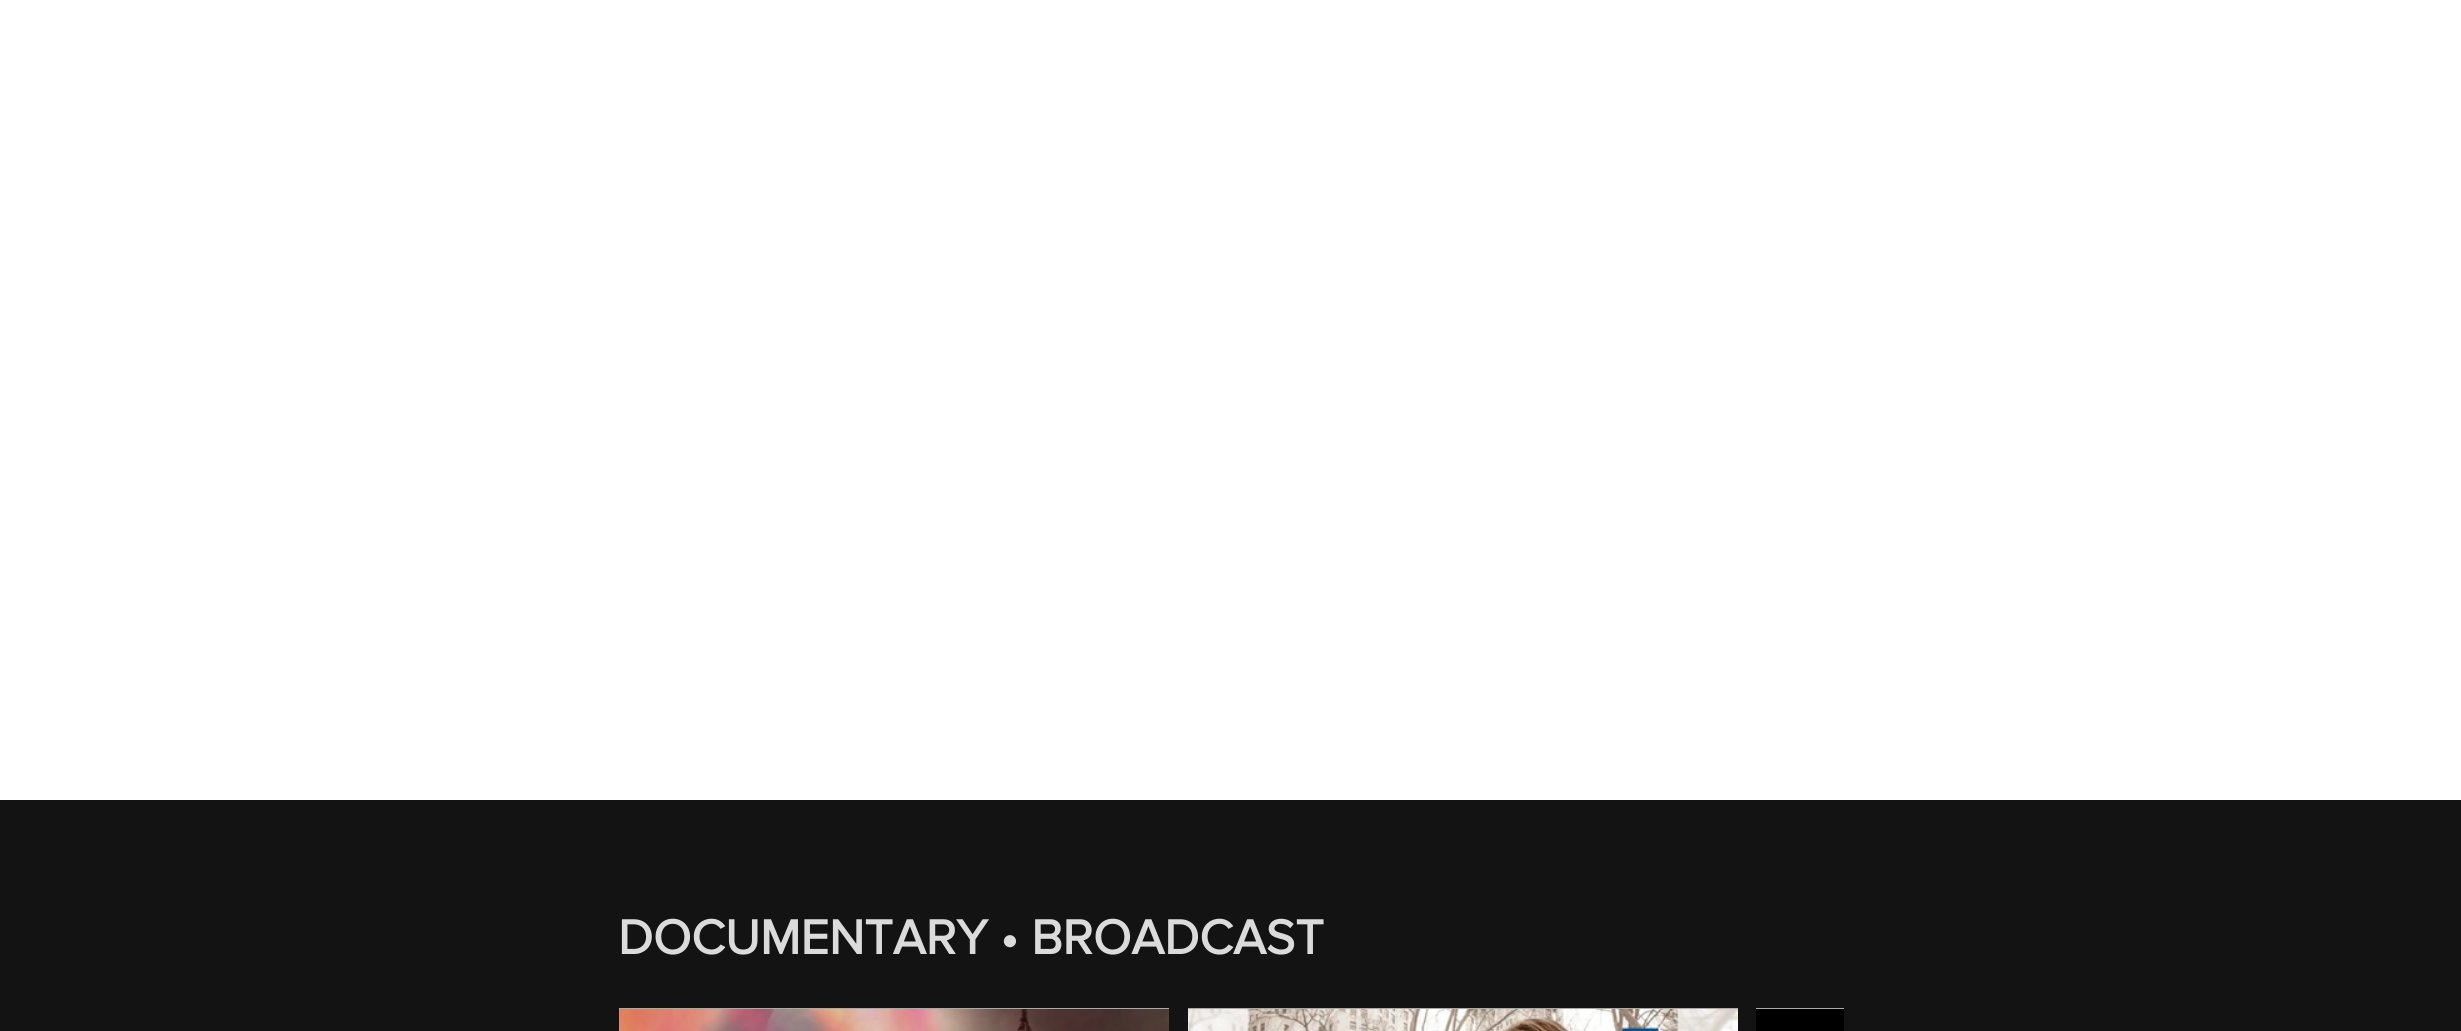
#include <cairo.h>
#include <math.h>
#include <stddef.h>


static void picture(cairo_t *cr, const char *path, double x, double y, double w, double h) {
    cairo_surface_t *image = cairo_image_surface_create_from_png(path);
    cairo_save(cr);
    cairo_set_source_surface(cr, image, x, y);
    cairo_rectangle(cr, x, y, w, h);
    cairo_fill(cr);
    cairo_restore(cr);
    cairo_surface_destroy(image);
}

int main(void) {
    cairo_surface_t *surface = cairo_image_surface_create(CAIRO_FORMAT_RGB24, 2461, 1031);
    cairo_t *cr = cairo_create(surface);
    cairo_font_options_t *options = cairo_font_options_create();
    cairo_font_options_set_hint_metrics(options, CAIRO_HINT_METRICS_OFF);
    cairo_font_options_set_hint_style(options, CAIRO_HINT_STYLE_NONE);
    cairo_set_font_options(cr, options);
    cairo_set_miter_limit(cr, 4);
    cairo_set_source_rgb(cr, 1, 1, 1);
    cairo_paint(cr);
    cairo_set_source_rgb(cr, 0.078, 0.078, 0.078);
    cairo_rectangle(cr, 0, 800, 2461, 231);
    cairo_fill(cr);
    cairo_select_font_face(cr, "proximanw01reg", CAIRO_FONT_SLANT_NORMAL, CAIRO_FONT_WEIGHT_BOLD);
    cairo_set_font_size(cr, 50);
    cairo_set_source_rgb(cr, 0.859, 0.859, 0.859);
    cairo_move_to(cr, 618, 954);
    cairo_show_text(cr, "DOCUMENTARY • BROADCAST");
    cairo_set_source_rgb(cr, 0.675, 0.663, 0.663);
    cairo_rectangle(cr, 619, 1008, 550, 1);
    cairo_fill(cr);
    picture(cr, "img1.png", 619, 1009, 550, 22);
    cairo_rectangle(cr, 1188, 1008, 550, 1);
    cairo_fill(cr);
    picture(cr, "img2.png", 1188, 1009, 550, 22);
    cairo_rectangle(cr, 1756, 1008, 88, 1);
    cairo_fill(cr);
    cairo_set_source_rgb(cr, 0, 0, 0);
    cairo_rectangle(cr, 1756, 1009, 88, 22);
    cairo_fill(cr);
    cairo_surface_write_to_png(surface, "page.png");
    cairo_font_options_destroy(options);
    cairo_destroy(cr);
    cairo_surface_destroy(surface);
    return 0;
}
